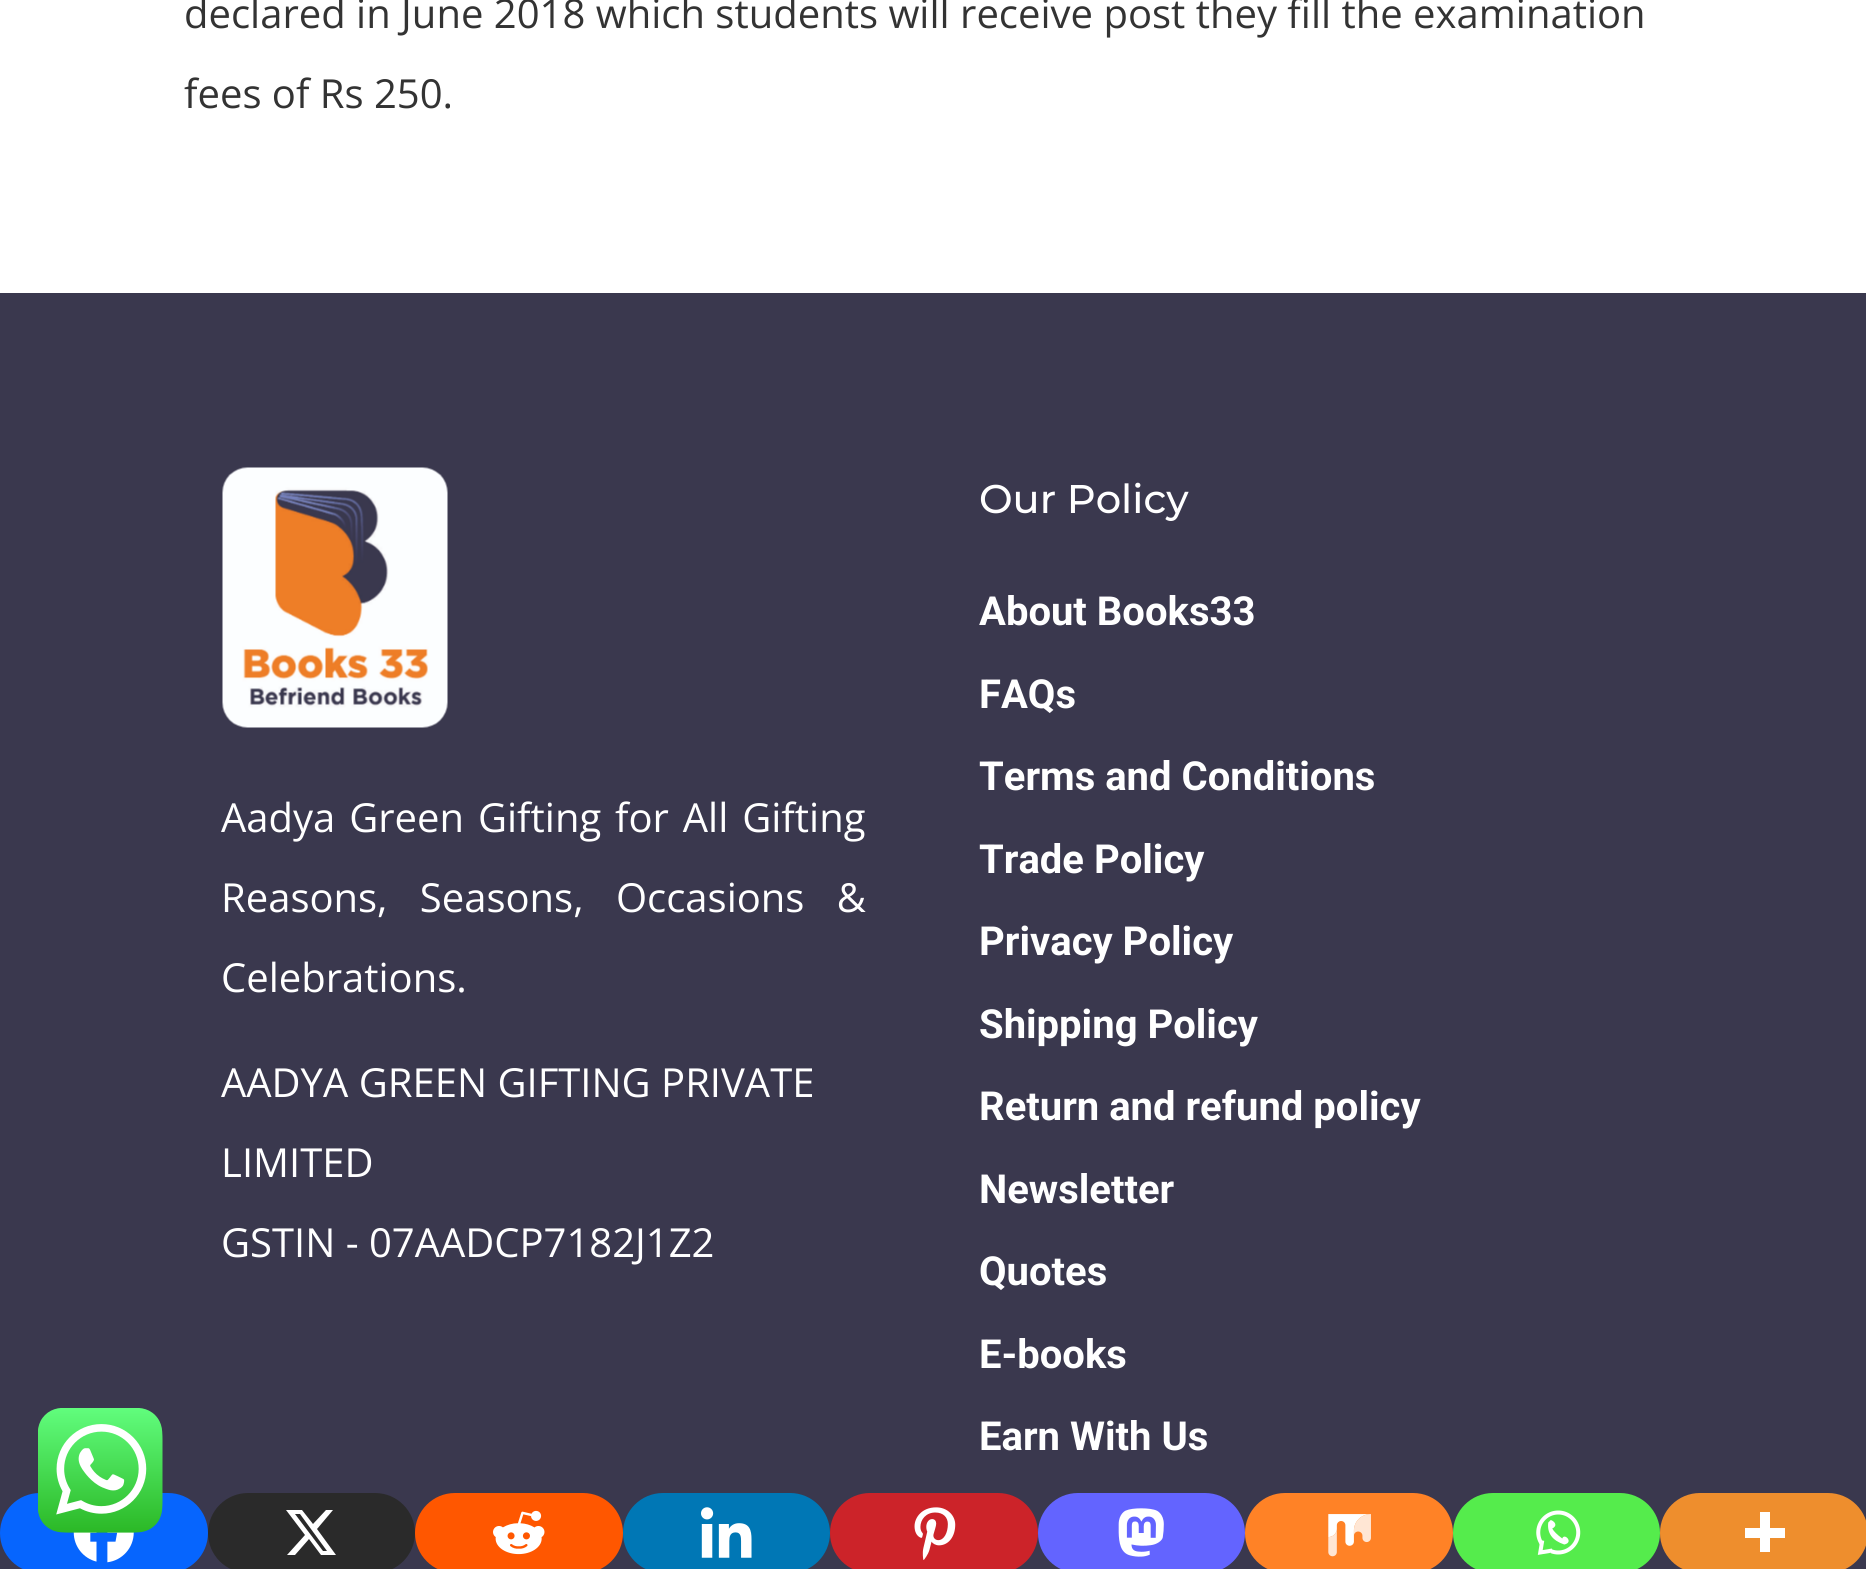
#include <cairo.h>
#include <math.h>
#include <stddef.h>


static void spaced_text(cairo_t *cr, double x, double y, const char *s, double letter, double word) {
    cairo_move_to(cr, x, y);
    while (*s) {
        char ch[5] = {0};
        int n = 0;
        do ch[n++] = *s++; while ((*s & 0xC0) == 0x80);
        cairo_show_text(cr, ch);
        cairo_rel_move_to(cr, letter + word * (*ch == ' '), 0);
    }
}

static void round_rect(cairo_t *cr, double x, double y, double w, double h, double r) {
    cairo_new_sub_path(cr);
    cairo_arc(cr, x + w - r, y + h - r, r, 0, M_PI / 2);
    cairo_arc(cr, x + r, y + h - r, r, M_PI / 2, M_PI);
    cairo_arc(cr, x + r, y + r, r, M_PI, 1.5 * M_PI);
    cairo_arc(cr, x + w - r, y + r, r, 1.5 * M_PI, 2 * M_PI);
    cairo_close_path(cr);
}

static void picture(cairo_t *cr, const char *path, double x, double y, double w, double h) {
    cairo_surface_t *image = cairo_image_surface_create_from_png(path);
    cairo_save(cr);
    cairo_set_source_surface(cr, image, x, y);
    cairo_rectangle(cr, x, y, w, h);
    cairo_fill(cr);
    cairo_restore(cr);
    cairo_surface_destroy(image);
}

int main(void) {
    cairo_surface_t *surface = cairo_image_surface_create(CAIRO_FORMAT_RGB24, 1866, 1569);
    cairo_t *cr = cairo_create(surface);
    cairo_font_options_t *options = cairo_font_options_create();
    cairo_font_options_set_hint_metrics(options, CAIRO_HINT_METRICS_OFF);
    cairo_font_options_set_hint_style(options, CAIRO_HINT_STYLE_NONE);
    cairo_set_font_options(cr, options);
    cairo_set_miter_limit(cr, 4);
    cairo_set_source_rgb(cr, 1, 1, 1);
    cairo_paint(cr);
    cairo_select_font_face(cr, "Open Sans", CAIRO_FONT_SLANT_NORMAL, CAIRO_FONT_WEIGHT_NORMAL);
    cairo_set_font_size(cr, 40);
    cairo_set_source_rgb(cr, 0.2, 0.2, 0.2);
    cairo_move_to(cr, 184, 28);
    cairo_show_text(cr, "declared in June 2018 which students will receive post they fill the examination");
    cairo_move_to(cr, 184, 108);
    cairo_show_text(cr, "fees of Rs 250.");
    cairo_set_source_rgb(cr, 0.227, 0.22, 0.306);
    cairo_rectangle(cr, 0, 293, 1866, 1276);
    cairo_fill(cr);
    cairo_set_source_rgb(cr, 0.027, 0.396, 0.996);
    round_rect(cr, 0, 1493, 208, 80, 40);
    cairo_fill(cr);
    picture(cr, "img1.png", 73, 1532, 61, 31);
    cairo_set_source_rgb(cr, 0.165, 0.165, 0.165);
    round_rect(cr, 208, 1493, 207, 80, 40);
    cairo_fill(cr);
    cairo_set_source_rgb(cr, 1, 1, 1);
    cairo_new_path(cr);
    cairo_move_to(cr, 326, 1510);
    cairo_line_to(cr, 333, 1510);
    cairo_line_to(cr, 317, 1529);
    cairo_line_to(cr, 336, 1555);
    cairo_line_to(cr, 321, 1555);
    cairo_line_to(cr, 309, 1539);
    cairo_line_to(cr, 295, 1555);
    cairo_line_to(cr, 287, 1555);
    cairo_line_to(cr, 305, 1535);
    cairo_line_to(cr, 286, 1510);
    cairo_line_to(cr, 302, 1510);
    cairo_line_to(cr, 313, 1524);
    cairo_close_path(cr);
    cairo_move_to(cr, 323, 1551);
    cairo_line_to(cr, 327, 1551);
    cairo_line_to(cr, 300, 1514);
    cairo_line_to(cr, 295, 1514);
    cairo_close_path(cr);
    cairo_fill(cr);
    cairo_set_source_rgb(cr, 1, 0.341, 0);
    round_rect(cr, 415, 1493, 208, 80, 40);
    cairo_fill(cr);
    picture(cr, "img2.png", 493, 1510, 52, 45);
    cairo_set_source_rgb(cr, 0, 0.467, 0.71);
    round_rect(cr, 623, 1493, 207, 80, 40);
    cairo_fill(cr);
    picture(cr, "img3.png", 701, 1507, 51, 51);
    cairo_set_source_rgb(cr, 0.8, 0.137, 0.161);
    round_rect(cr, 830, 1493, 208, 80, 40);
    cairo_fill(cr);
    picture(cr, "img4.png", 914, 1507, 42, 53);
    cairo_set_source_rgb(cr, 0.388, 0.392, 1);
    round_rect(cr, 1038, 1493, 207, 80, 40);
    cairo_fill(cr);
    picture(cr, "img5.png", 1118, 1508, 46, 49);
    cairo_set_source_rgb(cr, 1, 0.51, 0.149);
    round_rect(cr, 1245, 1493, 208, 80, 40);
    cairo_fill(cr);
    picture(cr, "img6.png", 1328, 1514, 43, 43);
    cairo_set_source_rgb(cr, 0.333, 0.922, 0.298);
    round_rect(cr, 1453, 1493, 207, 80, 40);
    cairo_fill(cr);
    picture(cr, "img7.png", 1536, 1510, 45, 45);
    cairo_set_source_rgb(cr, 0.933, 0.557, 0.176);
    round_rect(cr, 1660, 1493, 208, 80, 40);
    cairo_fill(cr);
    cairo_set_source_rgb(cr, 1, 1, 1);
    cairo_set_fill_rule(cr, CAIRO_FILL_RULE_EVEN_ODD);
    cairo_new_path(cr);
    cairo_move_to(cr, 1770, 1528);
    cairo_line_to(cr, 1770, 1512);
    cairo_line_to(cr, 1760, 1512);
    cairo_line_to(cr, 1760, 1528);
    cairo_line_to(cr, 1745, 1528);
    cairo_line_to(cr, 1745, 1538);
    cairo_line_to(cr, 1760, 1538);
    cairo_line_to(cr, 1760, 1552);
    cairo_line_to(cr, 1770, 1552);
    cairo_line_to(cr, 1770, 1538);
    cairo_line_to(cr, 1785, 1538);
    cairo_line_to(cr, 1785, 1528);
    cairo_close_path(cr);
    cairo_fill(cr);
    picture(cr, "img8.png", 222, 467, 226, 261);
    spaced_text(cr, 221, 832, "Aadya Green Gifting for All Gifting", 0, 3.5);
    spaced_text(cr, 221, 912, "Reasons, Seasons, Occasions &", 0, 22);
    cairo_move_to(cr, 221, 992);
    cairo_show_text(cr, "Celebrations.");
    cairo_move_to(cr, 221, 1097);
    cairo_show_text(cr, "AADYA GREEN GIFTING PRIVATE");
    cairo_move_to(cr, 221, 1177);
    cairo_show_text(cr, "LIMITED");
    cairo_move_to(cr, 221, 1257);
    cairo_show_text(cr, "GSTIN - 07AADCP7182J1Z2");
    cairo_select_font_face(cr, "Montserrat Thin", CAIRO_FONT_SLANT_NORMAL, CAIRO_FONT_WEIGHT_NORMAL);
    cairo_move_to(cr, 979, 513);
    cairo_show_text(cr, "Our Policy");
    cairo_select_font_face(cr, "Roboto", CAIRO_FONT_SLANT_NORMAL, CAIRO_FONT_WEIGHT_BOLD);
    cairo_move_to(cr, 979, 625);
    cairo_show_text(cr, "About Books33");
    cairo_move_to(cr, 979, 708);
    cairo_show_text(cr, "FAQs");
    cairo_move_to(cr, 979, 790);
    cairo_show_text(cr, "Terms and Conditions");
    cairo_move_to(cr, 979, 873);
    cairo_show_text(cr, "Trade Policy");
    cairo_move_to(cr, 979, 955);
    cairo_show_text(cr, "Privacy Policy");
    cairo_move_to(cr, 979, 1038);
    cairo_show_text(cr, "Shipping Policy");
    cairo_move_to(cr, 979, 1120);
    cairo_show_text(cr, "Return and refund policy");
    cairo_move_to(cr, 979, 1203);
    cairo_show_text(cr, "Newsletter");
    cairo_move_to(cr, 979, 1285);
    cairo_show_text(cr, "Quotes");
    cairo_move_to(cr, 979, 1368);
    cairo_show_text(cr, "E-books");
    cairo_move_to(cr, 979, 1450);
    cairo_show_text(cr, "Earn With Us");
    picture(cr, "img9.png", 38, 1408, 125, 125);
    cairo_surface_write_to_png(surface, "page.png");
    cairo_font_options_destroy(options);
    cairo_destroy(cr);
    cairo_surface_destroy(surface);
    return 0;
}
